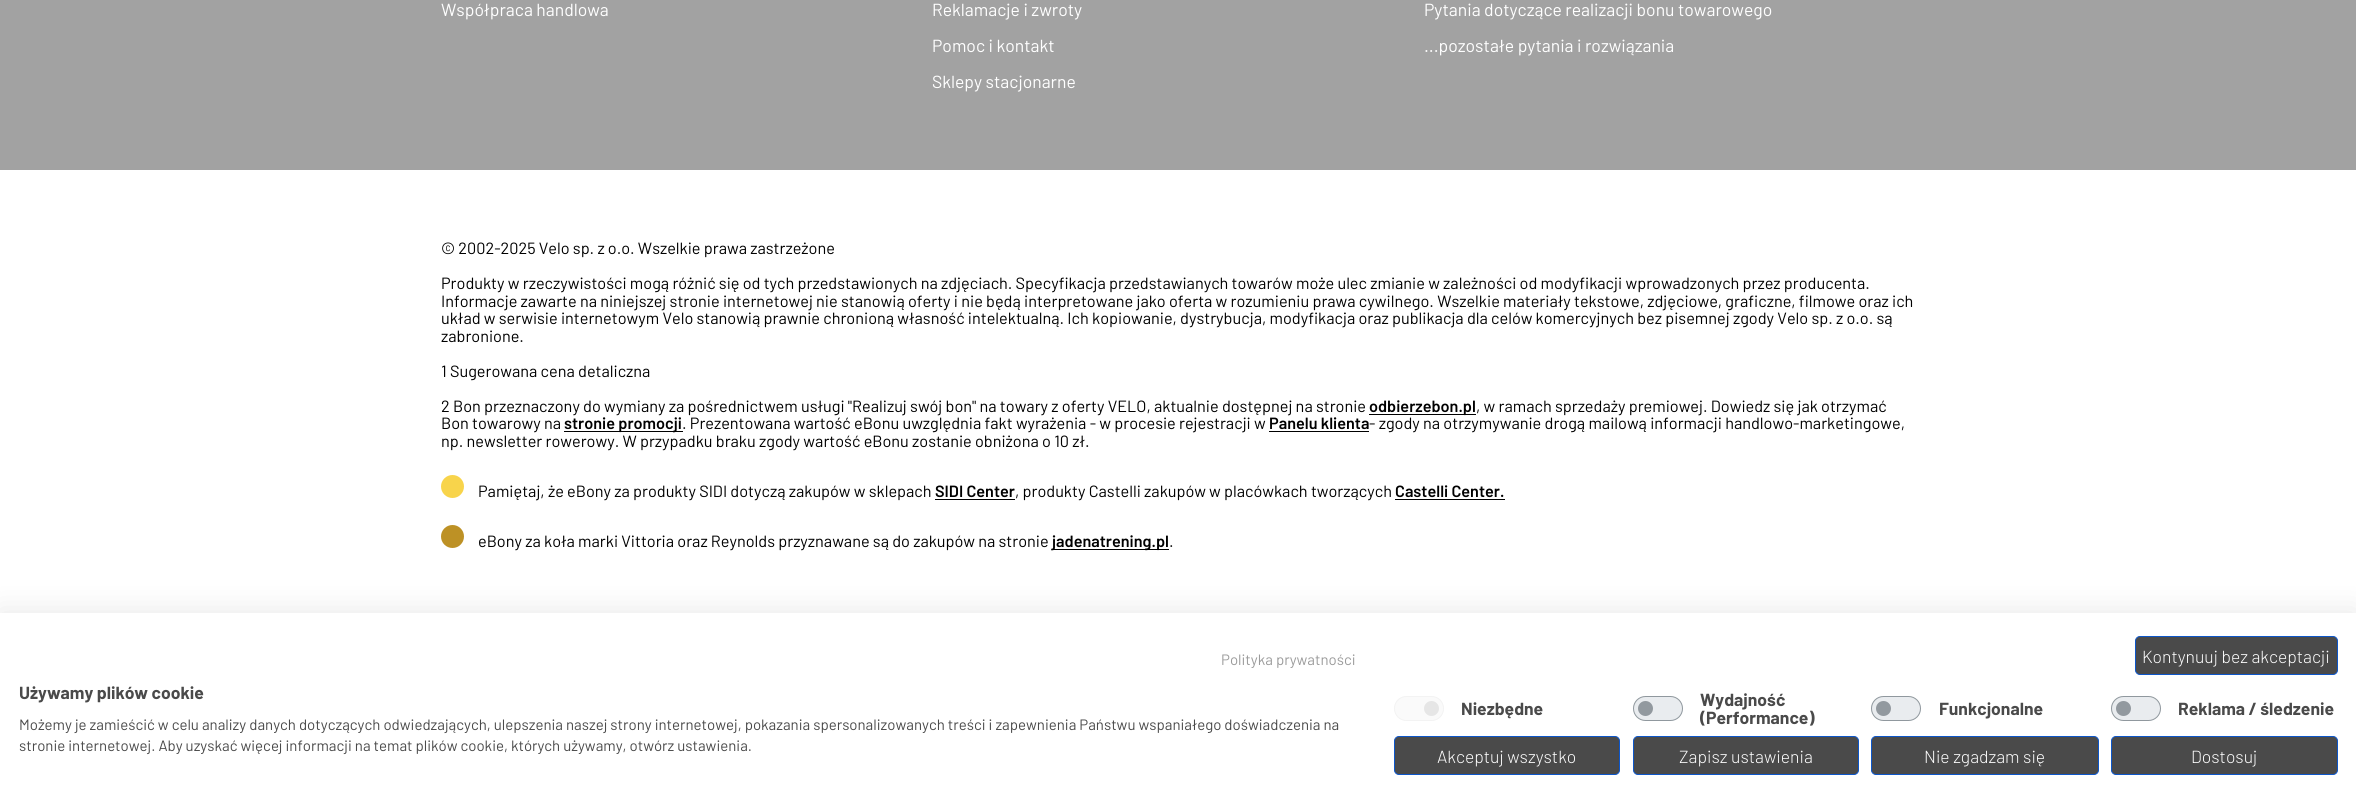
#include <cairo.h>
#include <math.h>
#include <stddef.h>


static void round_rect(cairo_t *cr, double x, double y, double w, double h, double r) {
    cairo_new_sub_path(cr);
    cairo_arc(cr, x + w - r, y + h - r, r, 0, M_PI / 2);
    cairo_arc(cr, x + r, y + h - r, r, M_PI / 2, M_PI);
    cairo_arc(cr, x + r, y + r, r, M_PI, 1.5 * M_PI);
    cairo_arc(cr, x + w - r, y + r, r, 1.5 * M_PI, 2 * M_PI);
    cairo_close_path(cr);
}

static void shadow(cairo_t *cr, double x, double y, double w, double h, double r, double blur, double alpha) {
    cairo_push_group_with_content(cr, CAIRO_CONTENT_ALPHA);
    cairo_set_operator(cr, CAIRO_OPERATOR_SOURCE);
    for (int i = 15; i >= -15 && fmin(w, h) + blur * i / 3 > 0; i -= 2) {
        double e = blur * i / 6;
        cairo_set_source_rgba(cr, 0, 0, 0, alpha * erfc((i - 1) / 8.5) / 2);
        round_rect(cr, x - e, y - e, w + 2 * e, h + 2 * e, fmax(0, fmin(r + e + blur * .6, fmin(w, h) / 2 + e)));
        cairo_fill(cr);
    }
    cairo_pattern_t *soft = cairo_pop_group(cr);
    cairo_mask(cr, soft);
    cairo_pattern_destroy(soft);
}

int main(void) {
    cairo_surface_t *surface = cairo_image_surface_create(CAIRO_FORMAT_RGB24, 2356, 808);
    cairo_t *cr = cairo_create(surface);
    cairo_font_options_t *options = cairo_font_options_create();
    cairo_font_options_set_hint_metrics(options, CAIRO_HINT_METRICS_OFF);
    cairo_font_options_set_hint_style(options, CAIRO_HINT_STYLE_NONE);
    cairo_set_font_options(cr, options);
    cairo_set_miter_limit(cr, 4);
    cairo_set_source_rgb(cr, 1, 1, 1);
    cairo_paint(cr);
    cairo_set_source_rgb(cr, 0.635, 0.635, 0.635);
    cairo_rectangle(cr, 0, 0, 2356, 170);
    cairo_fill(cr);
    cairo_select_font_face(cr, "Barlow", CAIRO_FONT_SLANT_NORMAL, CAIRO_FONT_WEIGHT_NORMAL);
    cairo_set_font_size(cr, 17.5);
    cairo_set_source_rgb(cr, 1, 1, 1);
    cairo_move_to(cr, 441, 16);
    cairo_show_text(cr, "Współpraca handlowa");
    cairo_move_to(cr, 932, 16);
    cairo_show_text(cr, "Reklamacje i zwroty");
    cairo_move_to(cr, 932, 52);
    cairo_show_text(cr, "Pomoc i kontakt");
    cairo_move_to(cr, 932, 88);
    cairo_show_text(cr, "Sklepy stacjonarne");
    cairo_move_to(cr, 1424, 16);
    cairo_show_text(cr, "Pytania dotyczące realizacji bonu towarowego");
    cairo_move_to(cr, 1424, 52);
    cairo_show_text(cr, "...pozostałe pytania i rozwiązania");
    cairo_set_font_size(cr, 16.25);
    cairo_set_source_rgb(cr, 0, 0, 0);
    cairo_move_to(cr, 441, 254);
    cairo_show_text(cr, "© 2002-2025 Velo sp. z o.o. Wszelkie prawa zastrzeżone");
    cairo_move_to(cr, 441, 289);
    cairo_show_text(cr, "Produkty w rzeczywistości mogą różnić się od tych przedstawionych na zdjęciach. Specyfikacja przedstawianych towarów może ulec zmianie w zależności od modyfikacji wprowadzonych przez producenta.");
    cairo_move_to(cr, 441, 307);
    cairo_show_text(cr, "Informacje zawarte na niniejszej stronie internetowej nie stanowią oferty i nie będą interpretowane jako oferta w rozumieniu prawa cywilnego. Wszelkie materiały tekstowe, zdjęciowe, graficzne, filmowe oraz ich");
    cairo_move_to(cr, 441, 324);
    cairo_show_text(cr, "układ w serwisie internetowym Velo stanowią prawnie chronioną własność intelektualną. Ich kopiowanie, dystrybucja, modyfikacja oraz publikacja dla celów komercyjnych bez pisemnej zgody Velo sp. z o.o. są");
    cairo_move_to(cr, 441, 342);
    cairo_show_text(cr, "zabronione.");
    cairo_move_to(cr, 441, 377);
    cairo_show_text(cr, "1 Sugerowana cena detaliczna");
    cairo_move_to(cr, 441, 412);
    cairo_show_text(cr, "2 Bon przeznaczony do wymiany za pośrednictwem usługi \"Realizuj swój bon\" na towary z oferty VELO, aktualnie dostępnej na stronie");
    cairo_rectangle(cr, 1369, 414, 107, 1);
    cairo_fill(cr);
    cairo_select_font_face(cr, "Barlow SemiBold", CAIRO_FONT_SLANT_NORMAL, CAIRO_FONT_WEIGHT_NORMAL);
    cairo_move_to(cr, 1369, 412);
    cairo_show_text(cr, "odbierzebon.pl");
    cairo_select_font_face(cr, "Barlow", CAIRO_FONT_SLANT_NORMAL, CAIRO_FONT_WEIGHT_NORMAL);
    cairo_move_to(cr, 1476, 412);
    cairo_show_text(cr, ", w ramach sprzedaży premiowej. Dowiedz się jak otrzymać");
    cairo_move_to(cr, 441, 429);
    cairo_show_text(cr, "Bon towarowy na");
    cairo_rectangle(cr, 564, 431, 119, 1);
    cairo_fill(cr);
    cairo_select_font_face(cr, "Barlow SemiBold", CAIRO_FONT_SLANT_NORMAL, CAIRO_FONT_WEIGHT_NORMAL);
    cairo_move_to(cr, 564, 429);
    cairo_show_text(cr, "stronie promocji");
    cairo_select_font_face(cr, "Barlow", CAIRO_FONT_SLANT_NORMAL, CAIRO_FONT_WEIGHT_NORMAL);
    cairo_move_to(cr, 682, 429);
    cairo_show_text(cr, ". Prezentowana wartość eBonu uwzględnia fakt wyrażenia - w procesie rejestracji w");
    cairo_select_font_face(cr, "Barlow SemiBold", CAIRO_FONT_SLANT_NORMAL, CAIRO_FONT_WEIGHT_NORMAL);
    cairo_move_to(cr, 1269, 429);
    cairo_show_text(cr, "Panelu klienta");
    cairo_rectangle(cr, 1269, 431, 100, 1);
    cairo_fill(cr);
    cairo_select_font_face(cr, "Barlow", CAIRO_FONT_SLANT_NORMAL, CAIRO_FONT_WEIGHT_NORMAL);
    cairo_move_to(cr, 1369, 429);
    cairo_show_text(cr, "- zgody na otrzymywanie drogą mailową informacji handlowo-marketingowe,");
    cairo_move_to(cr, 441, 447);
    cairo_show_text(cr, "np. newsletter rowerowy. W przypadku braku zgody wartość eBonu zostanie obniżona o 10 zł.");
    cairo_set_source_rgb(cr, 0.969, 0.831, 0.294);
    cairo_new_path(cr);
    cairo_arc(cr, 452.5, 486.5, 11.5, 0, 2 * M_PI);
    cairo_fill(cr);
    cairo_set_source_rgb(cr, 0, 0, 0);
    cairo_move_to(cr, 478, 497);
    cairo_show_text(cr, "Pamiętaj, że eBony za produkty SIDI dotyczą zakupów w sklepach");
    cairo_select_font_face(cr, "Barlow SemiBold", CAIRO_FONT_SLANT_NORMAL, CAIRO_FONT_WEIGHT_NORMAL);
    cairo_move_to(cr, 935, 497);
    cairo_show_text(cr, "SIDI Center");
    cairo_rectangle(cr, 935, 499, 80, 1);
    cairo_fill(cr);
    cairo_select_font_face(cr, "Barlow", CAIRO_FONT_SLANT_NORMAL, CAIRO_FONT_WEIGHT_NORMAL);
    cairo_move_to(cr, 1015, 497);
    cairo_show_text(cr, ", produkty Castelli zakupów w placówkach tworzących");
    cairo_select_font_face(cr, "Barlow SemiBold", CAIRO_FONT_SLANT_NORMAL, CAIRO_FONT_WEIGHT_NORMAL);
    cairo_move_to(cr, 1395, 497);
    cairo_show_text(cr, "Castelli Center.");
    cairo_rectangle(cr, 1395, 499, 110, 1);
    cairo_fill(cr);
    cairo_set_source_rgb(cr, 0.741, 0.569, 0.145);
    cairo_arc(cr, 452.5, 536.5, 11.5, 0, 2 * M_PI);
    cairo_fill(cr);
    cairo_select_font_face(cr, "Barlow", CAIRO_FONT_SLANT_NORMAL, CAIRO_FONT_WEIGHT_NORMAL);
    cairo_set_source_rgb(cr, 0, 0, 0);
    cairo_move_to(cr, 478, 547);
    cairo_show_text(cr, "eBony za koła marki Vittoria oraz Reynolds przyznawane są do zakupów na stronie");
    cairo_rectangle(cr, 1053, 549, 116, 1);
    cairo_fill(cr);
    cairo_select_font_face(cr, "Barlow SemiBold", CAIRO_FONT_SLANT_NORMAL, CAIRO_FONT_WEIGHT_NORMAL);
    cairo_move_to(cr, 1052, 547);
    cairo_show_text(cr, "jadenatrening.pl");
    cairo_select_font_face(cr, "Barlow", CAIRO_FONT_SLANT_NORMAL, CAIRO_FONT_WEIGHT_NORMAL);
    cairo_move_to(cr, 1169, 547);
    cairo_show_text(cr, ".");
    cairo_set_source_rgb(cr, 0, 0, 0);
    shadow(cr, 0, 613, 2356, 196, 0, 15, 0.1);
    cairo_set_source_rgb(cr, 1, 1, 1);
    cairo_rectangle(cr, 0, 613, 2356, 195);
    cairo_fill(cr);
    cairo_set_font_size(cr, 15);
    cairo_set_source_rgb(cr, 0.608, 0.608, 0.608);
    cairo_move_to(cr, 1221, 665);
    cairo_show_text(cr, "Polityka prywatności");
    cairo_set_source_rgb(cr, 0.29, 0.29, 0.29);
    round_rect(cr, 2135.5, 636.5, 202, 38, 4.5);
    cairo_fill_preserve(cr);
    cairo_set_source_rgb(cr, 0.051, 0.337, 0.788);
    cairo_set_line_width(cr, 1);
    cairo_stroke(cr);
    cairo_select_font_face(cr, "Barlow Light", CAIRO_FONT_SLANT_NORMAL, CAIRO_FONT_WEIGHT_NORMAL);
    cairo_set_font_size(cr, 17.5);
    cairo_set_source_rgb(cr, 1, 1, 1);
    cairo_move_to(cr, 2142, 663);
    cairo_show_text(cr, "Kontynuuj bez akceptacji");
    cairo_select_font_face(cr, "Barlow", CAIRO_FONT_SLANT_NORMAL, CAIRO_FONT_WEIGHT_BOLD);
    cairo_set_source_rgb(cr, 0.29, 0.29, 0.29);
    cairo_move_to(cr, 19, 699);
    cairo_show_text(cr, "Używamy plików cookie");
    cairo_select_font_face(cr, "Barlow", CAIRO_FONT_SLANT_NORMAL, CAIRO_FONT_WEIGHT_NORMAL);
    cairo_set_font_size(cr, 15);
    cairo_move_to(cr, 19, 730);
    cairo_show_text(cr, "Możemy je zamieścić w celu analizy danych dotyczących odwiedzających, ulepszenia naszej strony internetowej, pokazania spersonalizowanych treści i zapewnienia Państwu wspaniałego doświadczenia na");
    cairo_move_to(cr, 19, 751);
    cairo_show_text(cr, "stronie internetowej. Aby uzyskać więcej informacji na temat plików cookie, których używamy, otwórz ustawienia.");
    cairo_set_source_rgb(cr, 0.98, 0.98, 0.98);
    round_rect(cr, 1394, 696, 50, 25, 12.5);
    cairo_fill(cr);
    cairo_set_source_rgb(cr, 0.902, 0.902, 0.902);
    cairo_arc(cr, 1431.5, 708.5, 7.5, 0, 2 * M_PI);
    cairo_fill(cr);
    round_rect(cr, 1394.5, 696.5, 49, 24, 12);
    cairo_set_source_rgb(cr, 0.953, 0.953, 0.953);
    cairo_stroke(cr);
    cairo_select_font_face(cr, "Barlow", CAIRO_FONT_SLANT_NORMAL, CAIRO_FONT_WEIGHT_BOLD);
    cairo_set_font_size(cr, 17.5);
    cairo_set_source_rgb(cr, 0.29, 0.29, 0.29);
    cairo_move_to(cr, 1461, 715);
    cairo_show_text(cr, "Niezbędne");
    cairo_set_source_rgb(cr, 0.914, 0.925, 0.937);
    round_rect(cr, 1633, 696, 50, 25, 12.5);
    cairo_fill(cr);
    cairo_set_source_rgb(cr, 0.573, 0.6, 0.624);
    cairo_arc(cr, 1645.5, 708.5, 7.5, 0, 2 * M_PI);
    cairo_fill(cr);
    round_rect(cr, 1633.5, 696.5, 49, 24, 12);
    cairo_set_source_rgba(cr, 0.424, 0.459, 0.49, 0.7);
    cairo_stroke(cr);
    cairo_set_source_rgb(cr, 0.29, 0.29, 0.29);
    cairo_move_to(cr, 1700, 706);
    cairo_show_text(cr, "Wydajność");
    cairo_move_to(cr, 1700, 724);
    cairo_show_text(cr, "(Performance)");
    cairo_set_source_rgb(cr, 0.914, 0.925, 0.937);
    round_rect(cr, 1871, 696, 50, 25, 12.5);
    cairo_fill(cr);
    cairo_set_source_rgb(cr, 0.573, 0.6, 0.624);
    cairo_arc(cr, 1883.5, 708.5, 7.5, 0, 2 * M_PI);
    cairo_fill(cr);
    round_rect(cr, 1871.5, 696.5, 49, 24, 12);
    cairo_set_source_rgba(cr, 0.424, 0.459, 0.49, 0.7);
    cairo_stroke(cr);
    cairo_set_source_rgb(cr, 0.29, 0.29, 0.29);
    cairo_move_to(cr, 1939, 715);
    cairo_show_text(cr, "Funkcjonalne");
    cairo_set_source_rgb(cr, 0.914, 0.925, 0.937);
    round_rect(cr, 2111, 696, 50, 25, 12.5);
    cairo_fill(cr);
    cairo_set_source_rgb(cr, 0.573, 0.6, 0.624);
    cairo_arc(cr, 2123.5, 708.5, 7.5, 0, 2 * M_PI);
    cairo_fill(cr);
    round_rect(cr, 2111.5, 696.5, 49, 24, 12);
    cairo_set_source_rgba(cr, 0.424, 0.459, 0.49, 0.7);
    cairo_stroke(cr);
    cairo_set_source_rgb(cr, 0.29, 0.29, 0.29);
    cairo_move_to(cr, 2178, 715);
    cairo_show_text(cr, "Reklama / śledzenie");
    round_rect(cr, 1394.5, 736.5, 225, 38, 4.5);
    cairo_fill_preserve(cr);
    cairo_set_source_rgb(cr, 0.051, 0.337, 0.788);
    cairo_stroke(cr);
    cairo_select_font_face(cr, "Barlow Light", CAIRO_FONT_SLANT_NORMAL, CAIRO_FONT_WEIGHT_NORMAL);
    cairo_set_source_rgb(cr, 1, 1, 1);
    cairo_move_to(cr, 1437, 763);
    cairo_show_text(cr, "Akceptuj wszystko");
    cairo_set_source_rgb(cr, 0.29, 0.29, 0.29);
    round_rect(cr, 1633.5, 736.5, 225, 38, 4.5);
    cairo_fill_preserve(cr);
    cairo_set_source_rgb(cr, 0.051, 0.337, 0.788);
    cairo_stroke(cr);
    cairo_set_source_rgb(cr, 1, 1, 1);
    cairo_move_to(cr, 1679, 763);
    cairo_show_text(cr, "Zapisz ustawienia");
    cairo_set_source_rgb(cr, 0.29, 0.29, 0.29);
    round_rect(cr, 1871.5, 736.5, 227, 38, 4.5);
    cairo_fill_preserve(cr);
    cairo_set_source_rgb(cr, 0.051, 0.337, 0.788);
    cairo_stroke(cr);
    cairo_set_source_rgb(cr, 1, 1, 1);
    cairo_move_to(cr, 1924, 763);
    cairo_show_text(cr, "Nie zgadzam się");
    cairo_set_source_rgb(cr, 0.29, 0.29, 0.29);
    round_rect(cr, 2111.5, 736.5, 226, 38, 4.5);
    cairo_fill_preserve(cr);
    cairo_set_source_rgb(cr, 0.051, 0.337, 0.788);
    cairo_stroke(cr);
    cairo_set_source_rgb(cr, 1, 1, 1);
    cairo_move_to(cr, 2191, 763);
    cairo_show_text(cr, "Dostosuj");
    cairo_surface_write_to_png(surface, "page.png");
    cairo_font_options_destroy(options);
    cairo_destroy(cr);
    cairo_surface_destroy(surface);
    return 0;
}
